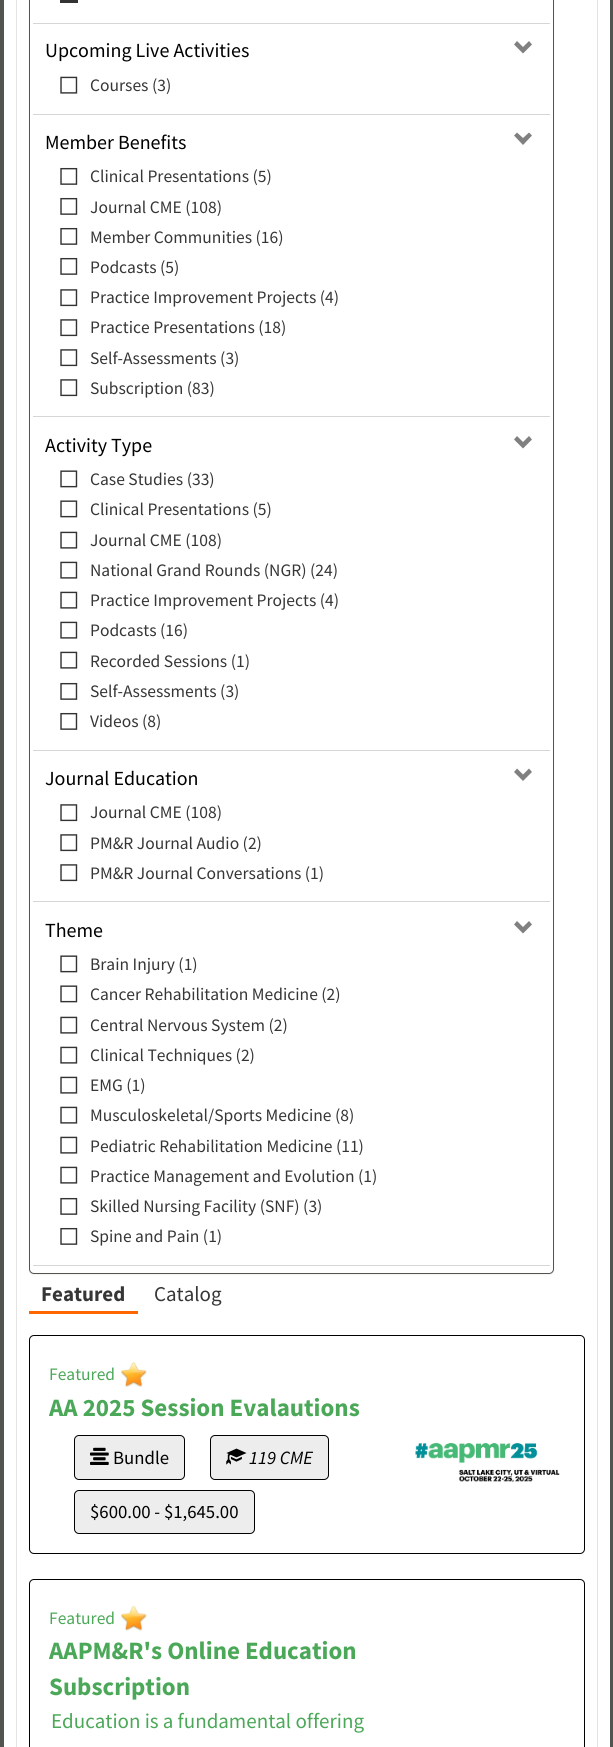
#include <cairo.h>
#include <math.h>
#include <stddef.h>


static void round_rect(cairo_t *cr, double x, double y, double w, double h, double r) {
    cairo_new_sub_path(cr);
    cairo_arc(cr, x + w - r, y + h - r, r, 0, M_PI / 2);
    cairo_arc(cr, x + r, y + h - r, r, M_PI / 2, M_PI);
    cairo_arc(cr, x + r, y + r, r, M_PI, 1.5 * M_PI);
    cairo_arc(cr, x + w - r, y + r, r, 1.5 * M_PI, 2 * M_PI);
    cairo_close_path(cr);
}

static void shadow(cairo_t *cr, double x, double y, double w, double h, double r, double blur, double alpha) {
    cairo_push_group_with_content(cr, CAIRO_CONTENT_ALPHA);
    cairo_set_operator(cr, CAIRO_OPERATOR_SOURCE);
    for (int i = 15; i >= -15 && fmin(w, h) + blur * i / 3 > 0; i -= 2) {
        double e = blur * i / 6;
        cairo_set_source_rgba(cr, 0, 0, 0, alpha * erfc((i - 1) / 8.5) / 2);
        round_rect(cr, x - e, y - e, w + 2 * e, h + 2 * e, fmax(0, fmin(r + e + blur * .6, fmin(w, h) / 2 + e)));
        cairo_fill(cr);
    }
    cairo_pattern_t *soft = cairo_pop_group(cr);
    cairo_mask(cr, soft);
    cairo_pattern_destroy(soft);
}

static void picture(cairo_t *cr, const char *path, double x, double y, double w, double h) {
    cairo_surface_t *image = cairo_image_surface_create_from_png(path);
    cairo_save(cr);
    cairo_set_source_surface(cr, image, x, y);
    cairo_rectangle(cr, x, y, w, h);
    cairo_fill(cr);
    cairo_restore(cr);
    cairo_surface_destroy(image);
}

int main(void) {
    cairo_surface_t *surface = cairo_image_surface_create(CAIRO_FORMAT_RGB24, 613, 1747);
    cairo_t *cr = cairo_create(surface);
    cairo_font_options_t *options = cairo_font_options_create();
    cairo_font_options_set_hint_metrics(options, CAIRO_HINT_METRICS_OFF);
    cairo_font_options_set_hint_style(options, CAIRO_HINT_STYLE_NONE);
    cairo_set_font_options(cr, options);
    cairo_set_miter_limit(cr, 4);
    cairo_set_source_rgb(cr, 1, 1, 1);
    cairo_paint(cr);
    cairo_rectangle(cr, 2, -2, 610, 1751);
    cairo_set_source_rgb(cr, 0.322, 0.333, 0.31);
    cairo_set_line_width(cr, 4);
    cairo_stroke(cr);
    cairo_rectangle(cr, 16.5, -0.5, 581, 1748);
    cairo_set_source_rgb(cr, 0.89, 0.89, 0.89);
    cairo_set_line_width(cr, 1);
    cairo_stroke(cr);
    cairo_set_source_rgb(cr, 0, 0, 0);
    shadow(cr, 29, -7, 525, 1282, 5, 0.5, 0.05);
    cairo_set_source_rgb(cr, 1, 1, 1);
    round_rect(cr, 29.5, -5.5, 524, 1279, 4.5);
    cairo_fill_preserve(cr);
    cairo_set_source_rgb(cr, 0.322, 0.333, 0.31);
    cairo_stroke(cr);
    cairo_set_source_rgb(cr, 0.839, 0.839, 0.839);
    cairo_rectangle(cr, 33, 23, 517, 1);
    cairo_fill(cr);
    cairo_set_source_rgb(cr, 0.2, 0.2, 0.2);
    cairo_rectangle(cr, 60, 0, 18, 3);
    cairo_fill(cr);
    cairo_set_source_rgb(cr, 0.839, 0.839, 0.839);
    cairo_rectangle(cr, 33, 114, 517, 1);
    cairo_fill(cr);
    cairo_select_font_face(cr, "Source Sans Pro", CAIRO_FONT_SLANT_NORMAL, CAIRO_FONT_WEIGHT_NORMAL);
    cairo_set_font_size(cr, 20);
    cairo_set_source_rgb(cr, 0, 0, 0);
    cairo_move_to(cr, 45, 57);
    cairo_show_text(cr, "Upcoming Live Activities");
    cairo_set_source_rgb(cr, 0.502, 0.502, 0.502);
    cairo_new_path(cr);
    cairo_move_to(cr, 532, 44.5);
    cairo_line_to(cr, 523, 53.5);
    cairo_line_to(cr, 514, 44.5);
    cairo_line_to(cr, 517, 41);
    cairo_line_to(cr, 523, 47);
    cairo_line_to(cr, 529, 41);
    cairo_close_path(cr);
    cairo_fill(cr);
    picture(cr, "img1.png", 60, 76, 18, 18);
    cairo_set_font_size(cr, 17.5);
    cairo_set_source_rgb(cr, 0.212, 0.212, 0.212);
    cairo_move_to(cr, 90, 91);
    cairo_show_text(cr, "Courses (3)");
    cairo_set_source_rgb(cr, 0.839, 0.839, 0.839);
    cairo_rectangle(cr, 33, 416, 517, 1);
    cairo_fill(cr);
    cairo_set_font_size(cr, 20);
    cairo_set_source_rgb(cr, 0, 0, 0);
    cairo_move_to(cr, 45, 149);
    cairo_show_text(cr, "Member Benefits");
    cairo_set_source_rgb(cr, 0.502, 0.502, 0.502);
    cairo_new_path(cr);
    cairo_move_to(cr, 532, 135.5);
    cairo_line_to(cr, 523, 145);
    cairo_line_to(cr, 514, 135.5);
    cairo_line_to(cr, 517, 132.5);
    cairo_line_to(cr, 523, 138);
    cairo_line_to(cr, 529, 132.5);
    cairo_close_path(cr);
    cairo_fill(cr);
    picture(cr, "img2.png", 60, 167, 18, 18);
    cairo_set_font_size(cr, 17.5);
    cairo_set_source_rgb(cr, 0.212, 0.212, 0.212);
    cairo_move_to(cr, 90, 182);
    cairo_show_text(cr, "Clinical Presentations (5)");
    picture(cr, "img2.png", 60, 197, 18, 18);
    cairo_move_to(cr, 90, 213);
    cairo_show_text(cr, "Journal CME (108)");
    picture(cr, "img2.png", 60, 227, 18, 18);
    cairo_move_to(cr, 90, 243);
    cairo_show_text(cr, "Member Communities (16)");
    picture(cr, "img2.png", 60, 257, 18, 18);
    cairo_move_to(cr, 90, 273);
    cairo_show_text(cr, "Podcasts (5)");
    picture(cr, "img3.png", 60, 289, 18, 18);
    cairo_move_to(cr, 90, 303);
    cairo_show_text(cr, "Practice Improvement Projects (4)");
    picture(cr, "img3.png", 60, 319, 18, 18);
    cairo_move_to(cr, 90, 333);
    cairo_show_text(cr, "Practice Presentations (18)");
    picture(cr, "img3.png", 60, 349, 18, 18);
    cairo_move_to(cr, 90, 364);
    cairo_show_text(cr, "Self-Assessments (3)");
    picture(cr, "img3.png", 60, 379, 18, 18);
    cairo_move_to(cr, 90, 394);
    cairo_show_text(cr, "Subscription (83)");
    cairo_set_source_rgb(cr, 0.839, 0.839, 0.839);
    cairo_rectangle(cr, 33, 750, 517, 1);
    cairo_fill(cr);
    cairo_set_font_size(cr, 20);
    cairo_set_source_rgb(cr, 0, 0, 0);
    cairo_move_to(cr, 45, 452);
    cairo_show_text(cr, "Activity Type");
    cairo_set_source_rgb(cr, 0.502, 0.502, 0.502);
    cairo_new_path(cr);
    cairo_move_to(cr, 532, 439.5);
    cairo_line_to(cr, 523, 448.5);
    cairo_line_to(cr, 514, 439.5);
    cairo_line_to(cr, 517, 436);
    cairo_line_to(cr, 523, 442);
    cairo_line_to(cr, 529, 436);
    cairo_close_path(cr);
    cairo_fill(cr);
    picture(cr, "img4.png", 60, 470, 18, 18);
    cairo_set_font_size(cr, 17.5);
    cairo_set_source_rgb(cr, 0.212, 0.212, 0.212);
    cairo_move_to(cr, 90, 485);
    cairo_show_text(cr, "Case Studies (33)");
    picture(cr, "img4.png", 60, 500, 18, 18);
    cairo_move_to(cr, 90, 515);
    cairo_show_text(cr, "Clinical Presentations (5)");
    picture(cr, "img1.png", 60, 531, 18, 18);
    cairo_move_to(cr, 90, 546);
    cairo_show_text(cr, "Journal CME (108)");
    picture(cr, "img1.png", 60, 561, 18, 18);
    cairo_move_to(cr, 90, 576);
    cairo_show_text(cr, "National Grand Rounds (NGR) (24)");
    picture(cr, "img1.png", 60, 591, 18, 18);
    cairo_move_to(cr, 90, 606);
    cairo_show_text(cr, "Practice Improvement Projects (4)");
    picture(cr, "img1.png", 60, 621, 18, 18);
    cairo_move_to(cr, 90, 636);
    cairo_show_text(cr, "Podcasts (16)");
    picture(cr, "img1.png", 60, 651, 18, 18);
    cairo_move_to(cr, 90, 667);
    cairo_show_text(cr, "Recorded Sessions (1)");
    picture(cr, "img2.png", 60, 682, 18, 18);
    cairo_move_to(cr, 90, 697);
    cairo_show_text(cr, "Self-Assessments (3)");
    picture(cr, "img2.png", 60, 712, 18, 18);
    cairo_move_to(cr, 90, 727);
    cairo_show_text(cr, "Videos (8)");
    cairo_set_source_rgb(cr, 0.839, 0.839, 0.839);
    cairo_rectangle(cr, 33, 901, 517, 1);
    cairo_fill(cr);
    cairo_set_font_size(cr, 20);
    cairo_set_source_rgb(cr, 0, 0, 0);
    cairo_move_to(cr, 45, 785);
    cairo_show_text(cr, "Journal Education");
    cairo_set_source_rgb(cr, 0.502, 0.502, 0.502);
    cairo_new_path(cr);
    cairo_move_to(cr, 532, 772);
    cairo_line_to(cr, 523, 781);
    cairo_line_to(cr, 514, 772);
    cairo_line_to(cr, 517, 768.5);
    cairo_line_to(cr, 523, 774.5);
    cairo_line_to(cr, 529, 768.5);
    cairo_close_path(cr);
    cairo_fill(cr);
    picture(cr, "img3.png", 60, 804, 18, 18);
    cairo_set_font_size(cr, 17.5);
    cairo_set_source_rgb(cr, 0.212, 0.212, 0.212);
    cairo_move_to(cr, 90, 818);
    cairo_show_text(cr, "Journal CME (108)");
    picture(cr, "img3.png", 60, 834, 18, 18);
    cairo_move_to(cr, 90, 849);
    cairo_show_text(cr, "PM&R Journal Audio (2)");
    picture(cr, "img3.png", 60, 864, 18, 18);
    cairo_move_to(cr, 90, 879);
    cairo_show_text(cr, "PM&R Journal Conversations (1)");
    cairo_set_source_rgb(cr, 0.839, 0.839, 0.839);
    cairo_rectangle(cr, 33, 1265, 517, 1);
    cairo_fill(cr);
    cairo_set_font_size(cr, 20);
    cairo_set_source_rgb(cr, 0, 0, 0);
    cairo_move_to(cr, 45, 937);
    cairo_show_text(cr, "Theme");
    cairo_set_source_rgb(cr, 0.502, 0.502, 0.502);
    cairo_new_path(cr);
    cairo_move_to(cr, 532, 924.5);
    cairo_line_to(cr, 523, 933.5);
    cairo_line_to(cr, 514, 924.5);
    cairo_line_to(cr, 517, 921);
    cairo_line_to(cr, 523, 927);
    cairo_line_to(cr, 529, 921);
    cairo_close_path(cr);
    cairo_fill(cr);
    picture(cr, "img4.png", 60, 955, 18, 18);
    cairo_set_font_size(cr, 17.5);
    cairo_set_source_rgb(cr, 0.212, 0.212, 0.212);
    cairo_move_to(cr, 90, 970);
    cairo_show_text(cr, "Brain Injury (1)");
    picture(cr, "img4.png", 60, 985, 18, 18);
    cairo_move_to(cr, 90, 1000);
    cairo_show_text(cr, "Cancer Rehabilitation Medicine (2)");
    picture(cr, "img1.png", 60, 1016, 18, 18);
    cairo_move_to(cr, 90, 1031);
    cairo_show_text(cr, "Central Nervous System (2)");
    picture(cr, "img1.png", 60, 1046, 18, 18);
    cairo_move_to(cr, 90, 1061);
    cairo_show_text(cr, "Clinical Techniques (2)");
    picture(cr, "img1.png", 60, 1076, 18, 18);
    cairo_move_to(cr, 90, 1091);
    cairo_show_text(cr, "EMG (1)");
    picture(cr, "img1.png", 60, 1106, 18, 18);
    cairo_move_to(cr, 90, 1121);
    cairo_show_text(cr, "Musculoskeletal/Sports Medicine (8)");
    picture(cr, "img1.png", 60, 1136, 18, 18);
    cairo_move_to(cr, 90, 1152);
    cairo_show_text(cr, "Pediatric Rehabilitation Medicine (11)");
    picture(cr, "img1.png", 60, 1166, 18, 18);
    cairo_move_to(cr, 90, 1182);
    cairo_show_text(cr, "Practice Management and Evolution (1)");
    picture(cr, "img2.png", 60, 1197, 18, 18);
    cairo_move_to(cr, 90, 1212);
    cairo_show_text(cr, "Skilled Nursing Facility (SNF) (3)");
    picture(cr, "img2.png", 60, 1227, 18, 18);
    cairo_move_to(cr, 90, 1242);
    cairo_show_text(cr, "Spine and Pain (1)");
    cairo_select_font_face(cr, "Source Sans Pro", CAIRO_FONT_SLANT_NORMAL, CAIRO_FONT_WEIGHT_BOLD);
    cairo_set_font_size(cr, 21);
    cairo_move_to(cr, 41, 1301);
    cairo_show_text(cr, "Featured");
    cairo_set_source_rgb(cr, 1, 0.4, 0);
    cairo_rectangle(cr, 29, 1311, 109, 3);
    cairo_fill(cr);
    cairo_select_font_face(cr, "Source Sans Pro", CAIRO_FONT_SLANT_NORMAL, CAIRO_FONT_WEIGHT_NORMAL);
    cairo_set_source_rgb(cr, 0.212, 0.212, 0.212);
    cairo_move_to(cr, 154, 1301);
    cairo_show_text(cr, "Catalog");
    round_rect(cr, 29.5, 1335.5, 555, 218, 4.5);
    cairo_set_source_rgb(cr, 0, 0, 0);
    cairo_stroke(cr);
    cairo_set_font_size(cr, 17.5);
    cairo_set_source_rgb(cr, 0.294, 0.659, 0.345);
    cairo_move_to(cr, 49, 1380);
    cairo_show_text(cr, "Featured");
    picture(cr, "img5.png", 121, 1362, 26, 25);
    cairo_select_font_face(cr, "Source Sans Pro", CAIRO_FONT_SLANT_NORMAL, CAIRO_FONT_WEIGHT_BOLD);
    cairo_set_font_size(cr, 25);
    cairo_move_to(cr, 49, 1416);
    cairo_show_text(cr, "AA 2025 Session Evalautions");
    cairo_set_source_rgb(cr, 0.929, 0.929, 0.929);
    round_rect(cr, 74.5, 1435.5, 110, 44, 4.5);
    cairo_fill_preserve(cr);
    cairo_set_source_rgb(cr, 0, 0, 0);
    cairo_stroke(cr);
    picture(cr, "img6.png", 90, 1447, 19, 18);
    cairo_select_font_face(cr, "Source Sans Pro", CAIRO_FONT_SLANT_NORMAL, CAIRO_FONT_WEIGHT_NORMAL);
    cairo_set_font_size(cr, 18.75);
    cairo_move_to(cr, 113, 1464);
    cairo_show_text(cr, "Bundle");
    cairo_set_source_rgb(cr, 0.929, 0.929, 0.929);
    round_rect(cr, 210.5, 1435.5, 118, 44, 4.5);
    cairo_fill_preserve(cr);
    cairo_set_source_rgb(cr, 0, 0, 0);
    cairo_stroke(cr);
    picture(cr, "img7.png", 226, 1448, 21, 17);
    cairo_select_font_face(cr, "Source Sans Pro", CAIRO_FONT_SLANT_ITALIC, CAIRO_FONT_WEIGHT_NORMAL);
    cairo_move_to(cr, 249, 1464);
    cairo_show_text(cr, "119 CME");
    cairo_set_source_rgb(cr, 0.929, 0.929, 0.929);
    round_rect(cr, 74.5, 1490.5, 180, 43, 4.5);
    cairo_fill_preserve(cr);
    cairo_set_source_rgb(cr, 0, 0, 0);
    cairo_stroke(cr);
    cairo_select_font_face(cr, "Source Sans Pro", CAIRO_FONT_SLANT_NORMAL, CAIRO_FONT_WEIGHT_NORMAL);
    cairo_move_to(cr, 90, 1518);
    cairo_show_text(cr, "$600.00 - $1,645.00");
    picture(cr, "img8.png", 415, 1442, 145, 41);
    round_rect(cr, 29.5, 1579.5, 555, 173, 4.5);
    cairo_stroke(cr);
    cairo_set_font_size(cr, 17.5);
    cairo_set_source_rgb(cr, 0.294, 0.659, 0.345);
    cairo_move_to(cr, 49, 1624);
    cairo_show_text(cr, "Featured");
    picture(cr, "img9.png", 121, 1605, 26, 26);
    cairo_select_font_face(cr, "Source Sans Pro", CAIRO_FONT_SLANT_NORMAL, CAIRO_FONT_WEIGHT_BOLD);
    cairo_set_font_size(cr, 25);
    cairo_move_to(cr, 49, 1659);
    cairo_show_text(cr, "AAPM&R's Online Education");
    cairo_move_to(cr, 49, 1695);
    cairo_show_text(cr, "Subscription");
    cairo_select_font_face(cr, "Source Sans Pro", CAIRO_FONT_SLANT_NORMAL, CAIRO_FONT_WEIGHT_NORMAL);
    cairo_set_font_size(cr, 21);
    cairo_move_to(cr, 51, 1728);
    cairo_show_text(cr, "Education is a fundamental offering");
    cairo_surface_write_to_png(surface, "page.png");
    cairo_font_options_destroy(options);
    cairo_destroy(cr);
    cairo_surface_destroy(surface);
    return 0;
}
